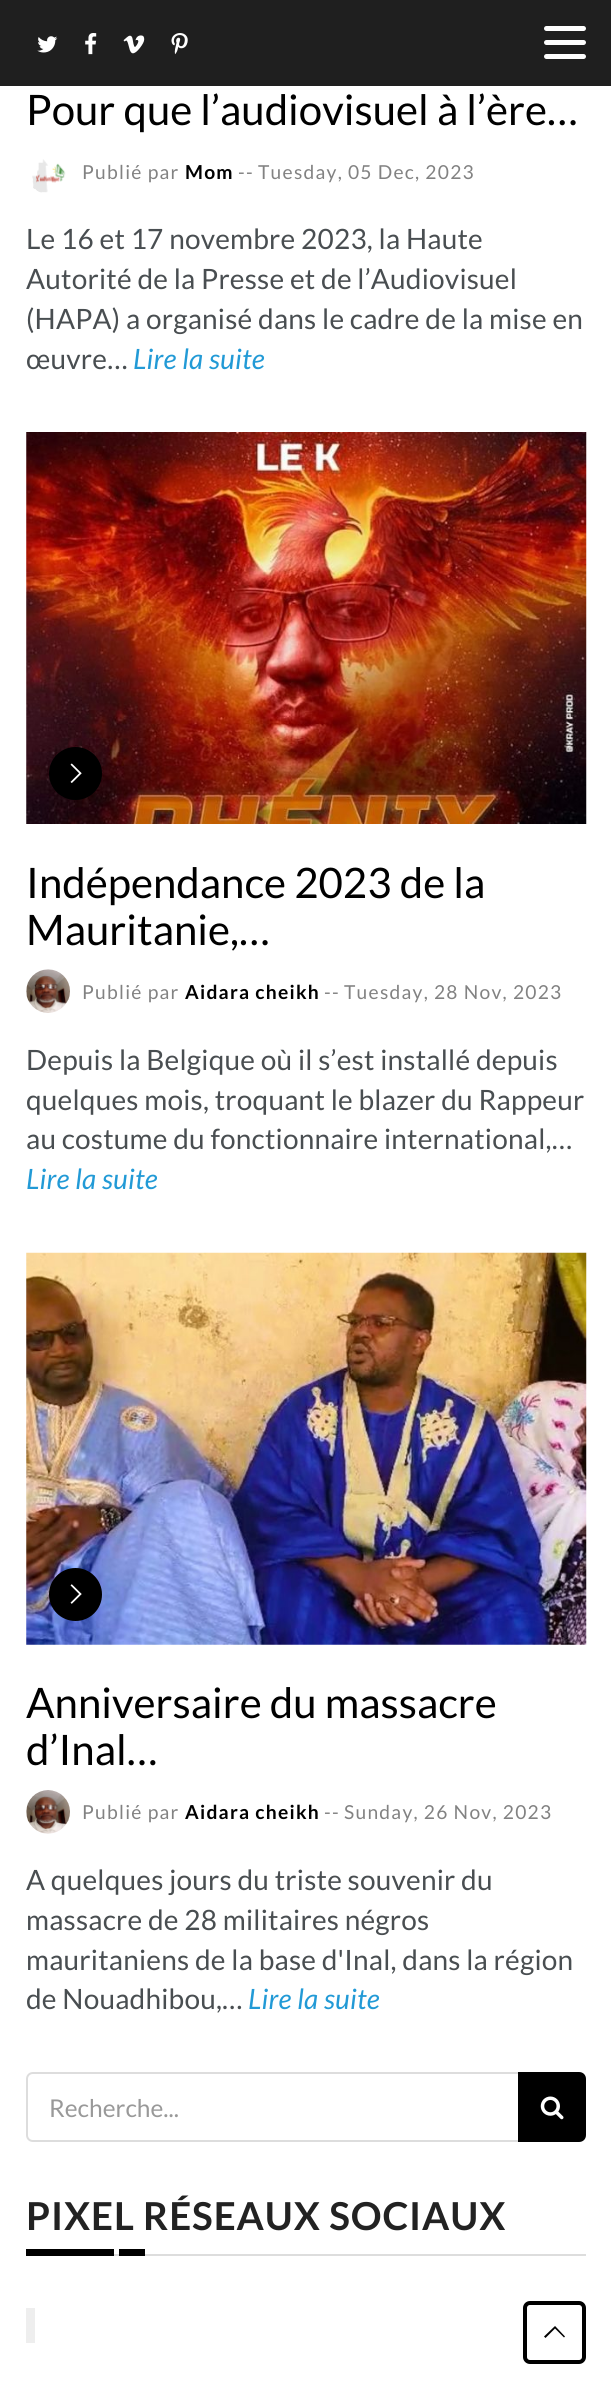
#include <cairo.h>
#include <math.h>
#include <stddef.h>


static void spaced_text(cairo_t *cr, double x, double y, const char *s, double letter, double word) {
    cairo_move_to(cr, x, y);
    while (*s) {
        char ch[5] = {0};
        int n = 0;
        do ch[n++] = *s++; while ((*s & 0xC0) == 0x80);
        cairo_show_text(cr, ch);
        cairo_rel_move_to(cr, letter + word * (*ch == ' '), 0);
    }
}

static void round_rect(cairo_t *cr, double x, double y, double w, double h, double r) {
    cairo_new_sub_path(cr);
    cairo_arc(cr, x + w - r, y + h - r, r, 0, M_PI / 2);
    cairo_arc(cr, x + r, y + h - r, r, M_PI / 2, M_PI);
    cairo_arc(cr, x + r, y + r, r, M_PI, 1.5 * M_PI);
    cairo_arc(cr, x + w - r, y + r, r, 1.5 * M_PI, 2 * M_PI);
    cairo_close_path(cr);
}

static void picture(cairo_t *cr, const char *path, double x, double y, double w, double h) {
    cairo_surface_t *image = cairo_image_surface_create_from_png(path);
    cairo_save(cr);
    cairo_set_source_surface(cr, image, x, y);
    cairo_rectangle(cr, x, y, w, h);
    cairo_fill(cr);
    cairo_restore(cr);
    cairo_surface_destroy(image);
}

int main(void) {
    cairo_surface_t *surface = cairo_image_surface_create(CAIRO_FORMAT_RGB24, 611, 2390);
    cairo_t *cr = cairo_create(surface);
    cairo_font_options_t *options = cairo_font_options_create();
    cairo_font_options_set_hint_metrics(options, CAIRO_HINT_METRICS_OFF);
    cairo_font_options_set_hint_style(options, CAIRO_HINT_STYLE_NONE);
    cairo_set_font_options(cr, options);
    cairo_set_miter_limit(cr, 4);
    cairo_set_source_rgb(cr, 1, 1, 1);
    cairo_paint(cr);
    cairo_set_source_rgb(cr, 0.122, 0.122, 0.122);
    cairo_rectangle(cr, 0, 0, 611, 86);
    cairo_fill(cr);
    picture(cr, "img1.png", 37, 36, 21, 17);
    picture(cr, "img2.png", 85, 33, 12, 22);
    picture(cr, "img3.png", 123, 35, 22, 19);
    picture(cr, "img4.png", 171, 33, 17, 22);
    cairo_set_source_rgb(cr, 1, 1, 1);
    round_rect(cr, 544, 26, 42, 5, 2.5);
    cairo_fill(cr);
    round_rect(cr, 544, 40, 42, 5, 2.5);
    cairo_fill(cr);
    round_rect(cr, 544, 54, 42, 5, 2.5);
    cairo_fill(cr);
    cairo_select_font_face(cr, "Lato", CAIRO_FONT_SLANT_NORMAL, CAIRO_FONT_WEIGHT_NORMAL);
    cairo_set_font_size(cr, 42);
    cairo_set_source_rgb(cr, 0, 0, 0);
    cairo_move_to(cr, 26, 125);
    cairo_show_text(cr, "Pour que l’audiovisuel à l’ère…");
    picture(cr, "img5.png", 32, 159, 34, 34);
    cairo_set_font_size(cr, 19.25);
    cairo_set_source_rgb(cr, 0.51, 0.51, 0.51);
    spaced_text(cr, 82, 179, "Publié par", 1.25, 0);
    cairo_select_font_face(cr, "Lato", CAIRO_FONT_SLANT_NORMAL, CAIRO_FONT_WEIGHT_BOLD);
    cairo_set_source_rgb(cr, 0, 0, 0);
    spaced_text(cr, 185, 179, "Mom", 1.25, 0);
    cairo_select_font_face(cr, "Lato", CAIRO_FONT_SLANT_NORMAL, CAIRO_FONT_WEIGHT_NORMAL);
    cairo_set_source_rgb(cr, 0.51, 0.51, 0.51);
    spaced_text(cr, 238, 179, "--", 1.25, 0);
    spaced_text(cr, 258, 179, "Tuesday, 05 Dec, 2023", 1.25, 0);
    cairo_set_font_size(cr, 28);
    cairo_set_source_rgb(cr, 0.286, 0.306, 0.318);
    spaced_text(cr, 26, 249, "Le 16 et 17 novembre 2023, la Haute", 0.2, 0);
    spaced_text(cr, 26, 289, "Autorité de la Presse et de l’Audiovisuel", 0.2, 0);
    spaced_text(cr, 26, 329, "(HAPA) a organisé dans le cadre de la mise en", 0.2, 0);
    spaced_text(cr, 26, 369, "œuvre…", 0.2, 0);
    cairo_select_font_face(cr, "Lato", CAIRO_FONT_SLANT_ITALIC, CAIRO_FONT_WEIGHT_NORMAL);
    cairo_set_source_rgb(cr, 0.133, 0.604, 0.839);
    spaced_text(cr, 133, 369, "Lire la suite", 0.2, 0);
    picture(cr, "img6.png", 26, 432, 561, 392);
    cairo_set_source_rgb(cr, 0, 0, 0);
    cairo_arc(cr, 75.5, 773.5, 26.5, 0, 2 * M_PI);
    cairo_fill(cr);
    picture(cr, "img7.png", 70, 763, 12, 20);
    cairo_select_font_face(cr, "Lato", CAIRO_FONT_SLANT_NORMAL, CAIRO_FONT_WEIGHT_NORMAL);
    cairo_set_font_size(cr, 42);
    cairo_move_to(cr, 26, 898);
    cairo_show_text(cr, "Indépendance 2023 de la");
    cairo_move_to(cr, 26, 945);
    cairo_show_text(cr, "Mauritanie,…");
    picture(cr, "img8.png", 26, 969, 44, 44);
    cairo_set_font_size(cr, 19.25);
    cairo_set_source_rgb(cr, 0.51, 0.51, 0.51);
    spaced_text(cr, 82, 999, "Publié par", 1.25, 0);
    cairo_select_font_face(cr, "Lato", CAIRO_FONT_SLANT_NORMAL, CAIRO_FONT_WEIGHT_BOLD);
    cairo_set_source_rgb(cr, 0, 0, 0);
    spaced_text(cr, 185, 999, "Aidara cheikh", 1.25, 0);
    cairo_select_font_face(cr, "Lato", CAIRO_FONT_SLANT_NORMAL, CAIRO_FONT_WEIGHT_NORMAL);
    cairo_set_source_rgb(cr, 0.51, 0.51, 0.51);
    spaced_text(cr, 324, 999, "--", 1.25, 0);
    spaced_text(cr, 344, 999, "Tuesday, 28 Nov, 2023", 1.25, 0);
    cairo_set_font_size(cr, 28);
    cairo_set_source_rgb(cr, 0.286, 0.306, 0.318);
    spaced_text(cr, 26, 1070, "Depuis la Belgique où il s’est installé depuis", 0.2, 0);
    spaced_text(cr, 26, 1110, "quelques mois, troquant le blazer du Rappeur", 0.2, 0);
    spaced_text(cr, 26, 1149, "au costume du fonctionnaire international,…", 0.2, 0);
    cairo_select_font_face(cr, "Lato", CAIRO_FONT_SLANT_ITALIC, CAIRO_FONT_WEIGHT_NORMAL);
    cairo_set_source_rgb(cr, 0.133, 0.604, 0.839);
    spaced_text(cr, 26, 1189, "Lire la suite", 0.2, 0);
    picture(cr, "img9.png", 26, 1252, 561, 393);
    cairo_set_source_rgb(cr, 0, 0, 0);
    cairo_arc(cr, 75.5, 1594.5, 26.5, 0, 2 * M_PI);
    cairo_fill(cr);
    picture(cr, "img10.png", 70, 1584, 12, 20);
    cairo_select_font_face(cr, "Lato", CAIRO_FONT_SLANT_NORMAL, CAIRO_FONT_WEIGHT_NORMAL);
    cairo_set_font_size(cr, 42);
    cairo_move_to(cr, 26, 1718);
    cairo_show_text(cr, "Anniversaire du massacre");
    cairo_move_to(cr, 26, 1765);
    cairo_show_text(cr, "d’Inal…");
    picture(cr, "img11.png", 26, 1790, 44, 44);
    cairo_set_font_size(cr, 19.25);
    cairo_set_source_rgb(cr, 0.51, 0.51, 0.51);
    spaced_text(cr, 82, 1819, "Publié par", 1.25, 0);
    cairo_select_font_face(cr, "Lato", CAIRO_FONT_SLANT_NORMAL, CAIRO_FONT_WEIGHT_BOLD);
    cairo_set_source_rgb(cr, 0, 0, 0);
    spaced_text(cr, 185, 1819, "Aidara cheikh", 1.25, 0);
    cairo_select_font_face(cr, "Lato", CAIRO_FONT_SLANT_NORMAL, CAIRO_FONT_WEIGHT_NORMAL);
    cairo_set_source_rgb(cr, 0.51, 0.51, 0.51);
    spaced_text(cr, 324, 1819, "--", 1.25, 0);
    spaced_text(cr, 344, 1819, "Sunday, 26 Nov, 2023", 1.25, 0);
    cairo_set_font_size(cr, 28);
    cairo_set_source_rgb(cr, 0.286, 0.306, 0.318);
    spaced_text(cr, 26, 1890, "A quelques jours du triste souvenir du", 0.2, 0);
    spaced_text(cr, 26, 1930, "massacre de 28 militaires négros", 0.2, 0);
    spaced_text(cr, 26, 1970, "mauritaniens de la base d'Inal, dans la région", 0.2, 0);
    spaced_text(cr, 26, 2009, "de Nouadhibou,…", 0.2, 0);
    cairo_select_font_face(cr, "Lato", CAIRO_FONT_SLANT_ITALIC, CAIRO_FONT_WEIGHT_NORMAL);
    cairo_set_source_rgb(cr, 0.133, 0.604, 0.839);
    spaced_text(cr, 248, 2009, "Lire la suite", 0.2, 0);
    cairo_new_path(cr);
    cairo_move_to(cr, 33, 2073);
    cairo_line_to(cr, 519, 2073);
    cairo_line_to(cr, 519, 2141);
    cairo_line_to(cr, 33, 2141);
    cairo_curve_to(cr, 29.5, 2141, 27, 2138.5, 27, 2135);
    cairo_line_to(cr, 27, 2079);
    cairo_curve_to(cr, 27, 2075.5, 29.5, 2073, 33, 2073);
    cairo_close_path(cr);
    cairo_set_source_rgb(cr, 0.867, 0.867, 0.867);
    cairo_stroke(cr);
    cairo_select_font_face(cr, "Lato", CAIRO_FONT_SLANT_NORMAL, CAIRO_FONT_WEIGHT_NORMAL);
    cairo_set_font_size(cr, 24.5);
    cairo_set_source_rgb(cr, 0.6, 0.6, 0.6);
    cairo_move_to(cr, 49, 2117);
    cairo_show_text(cr, "Recherche...");
    cairo_set_source_rgb(cr, 0, 0, 0);
    cairo_new_path(cr);
    cairo_move_to(cr, 519, 2073);
    cairo_line_to(cr, 579, 2073);
    cairo_curve_to(cr, 582.5, 2073, 585, 2075.5, 585, 2079);
    cairo_line_to(cr, 585, 2135);
    cairo_curve_to(cr, 585, 2138.5, 582.5, 2141, 579, 2141);
    cairo_line_to(cr, 519, 2141);
    cairo_close_path(cr);
    cairo_fill_preserve(cr);
    cairo_stroke(cr);
    picture(cr, "img12.png", 540, 2096, 24, 24);
    cairo_select_font_face(cr, "Lato", CAIRO_FONT_SLANT_NORMAL, CAIRO_FONT_WEIGHT_BOLD);
    cairo_set_font_size(cr, 38.5);
    cairo_set_source_rgb(cr, 0.133, 0.133, 0.133);
    spaced_text(cr, 26, 2230, "PIXEL RÉSEAUX SOCIAUX", 0.9, 0);
    cairo_set_source_rgb(cr, 0.867, 0.867, 0.867);
    cairo_rectangle(cr, 114, 2254, 472, 2);
    cairo_fill(cr);
    cairo_set_source_rgb(cr, 0, 0, 0);
    cairo_rectangle(cr, 26, 2249, 88, 7);
    cairo_fill(cr);
    cairo_rectangle(cr, 119, 2249, 26, 7);
    cairo_fill(cr);
    cairo_set_source_rgb(cr, 0.933, 0.933, 0.933);
    cairo_rectangle(cr, 26, 2308, 9, 35);
    cairo_fill(cr);
    round_rect(cr, 525, 2303, 59, 59, 5);
    cairo_set_source_rgb(cr, 0, 0, 0);
    cairo_set_line_width(cr, 4);
    cairo_stroke(cr);
    cairo_new_path(cr);
    cairo_move_to(cr, 556, 2327);
    cairo_line_to(cr, 555, 2326);
    cairo_line_to(cr, 544, 2336.5);
    cairo_line_to(cr, 545.5, 2338);
    cairo_line_to(cr, 555, 2328.5);
    cairo_line_to(cr, 564, 2337.5);
    cairo_line_to(cr, 565, 2336.5);
    cairo_close_path(cr);
    cairo_fill(cr);
    cairo_surface_write_to_png(surface, "page.png");
    cairo_font_options_destroy(options);
    cairo_destroy(cr);
    cairo_surface_destroy(surface);
    return 0;
}
